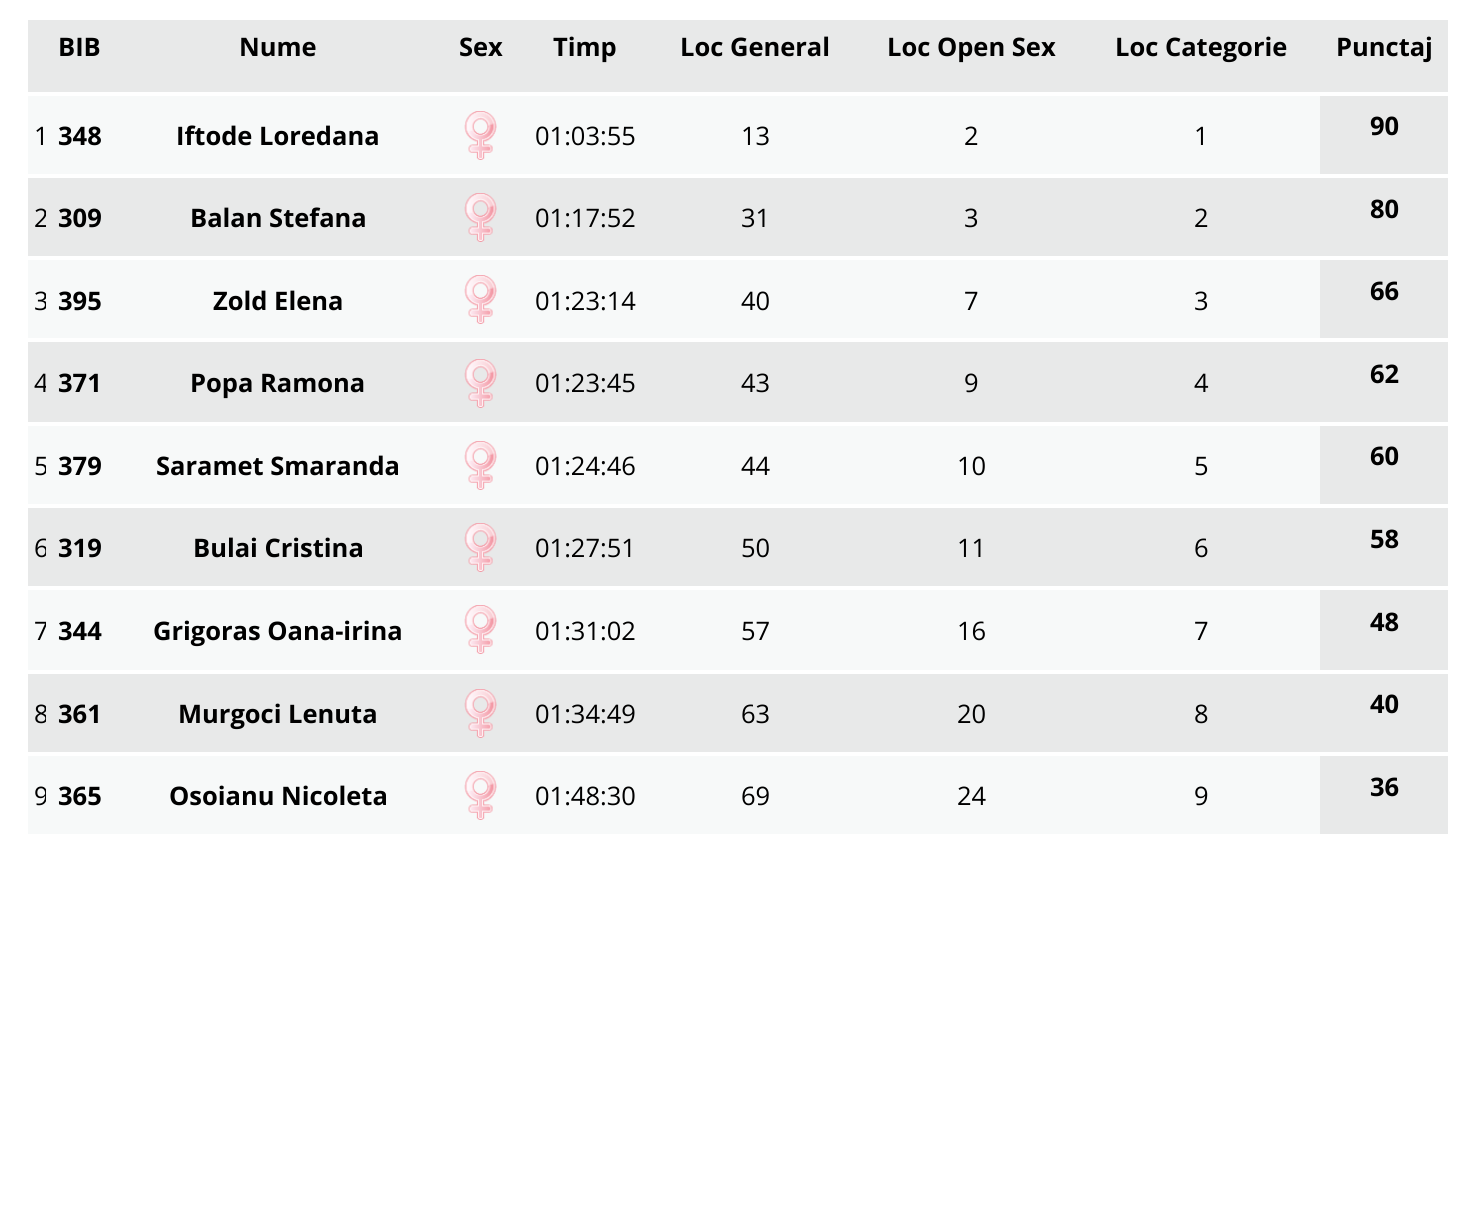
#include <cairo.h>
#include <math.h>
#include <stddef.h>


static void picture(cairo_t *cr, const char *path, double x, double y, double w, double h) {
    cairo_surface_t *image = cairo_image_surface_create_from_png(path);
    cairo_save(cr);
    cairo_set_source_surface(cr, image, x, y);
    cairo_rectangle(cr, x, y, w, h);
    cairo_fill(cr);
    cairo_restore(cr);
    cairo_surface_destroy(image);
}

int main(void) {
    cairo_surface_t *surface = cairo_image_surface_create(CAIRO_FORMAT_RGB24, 1475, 1205);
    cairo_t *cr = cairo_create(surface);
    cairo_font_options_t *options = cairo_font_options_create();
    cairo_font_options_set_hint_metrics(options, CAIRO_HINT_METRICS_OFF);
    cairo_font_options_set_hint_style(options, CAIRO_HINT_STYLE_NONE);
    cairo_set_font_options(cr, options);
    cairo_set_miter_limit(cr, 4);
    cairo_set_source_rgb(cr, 1, 1, 1);
    cairo_paint(cr);
    cairo_set_source_rgb(cr, 0.91, 0.914, 0.914);
    cairo_rectangle(cr, 28, 20, 1420, 72);
    cairo_fill(cr);
    cairo_select_font_face(cr, "Open Sans", CAIRO_FONT_SLANT_NORMAL, CAIRO_FONT_WEIGHT_BOLD);
    cairo_set_font_size(cr, 25.5);
    cairo_set_source_rgb(cr, 0, 0, 0);
    cairo_move_to(cr, 58, 56);
    cairo_show_text(cr, "BIB");
    cairo_move_to(cr, 239, 56);
    cairo_show_text(cr, "Nume");
    cairo_move_to(cr, 459, 56);
    cairo_show_text(cr, "Sex");
    cairo_move_to(cr, 553, 56);
    cairo_show_text(cr, "Timp");
    cairo_move_to(cr, 680, 56);
    cairo_show_text(cr, "Loc General");
    cairo_move_to(cr, 887, 56);
    cairo_show_text(cr, "Loc Open Sex");
    cairo_move_to(cr, 1115, 56);
    cairo_show_text(cr, "Loc Categorie");
    cairo_move_to(cr, 1336, 56);
    cairo_show_text(cr, "Punctaj");
    cairo_set_source_rgb(cr, 0.965, 0.976, 0.976);
    cairo_rectangle(cr, 28, 96, 1292, 78);
    cairo_fill(cr);
    cairo_select_font_face(cr, "Open Sans", CAIRO_FONT_SLANT_NORMAL, CAIRO_FONT_WEIGHT_NORMAL);
    cairo_set_source_rgb(cr, 0, 0, 0);
    cairo_move_to(cr, 34, 145);
    cairo_show_text(cr, "1");
    cairo_select_font_face(cr, "Open Sans", CAIRO_FONT_SLANT_NORMAL, CAIRO_FONT_WEIGHT_BOLD);
    cairo_move_to(cr, 58, 145);
    cairo_show_text(cr, "348");
    cairo_move_to(cr, 176, 145);
    cairo_show_text(cr, "Iftode Loredana");
    picture(cr, "img1.png", 464, 111, 33, 49);
    cairo_select_font_face(cr, "Open Sans", CAIRO_FONT_SLANT_NORMAL, CAIRO_FONT_WEIGHT_NORMAL);
    cairo_move_to(cr, 535, 145);
    cairo_show_text(cr, "01:03:55");
    cairo_move_to(cr, 741, 145);
    cairo_show_text(cr, "13");
    cairo_move_to(cr, 964, 145);
    cairo_show_text(cr, "2");
    cairo_move_to(cr, 1194, 145);
    cairo_show_text(cr, "1");
    cairo_set_source_rgb(cr, 0.91, 0.914, 0.914);
    cairo_rectangle(cr, 1320, 96, 128, 78);
    cairo_fill(cr);
    cairo_select_font_face(cr, "Open Sans", CAIRO_FONT_SLANT_NORMAL, CAIRO_FONT_WEIGHT_BOLD);
    cairo_set_source_rgb(cr, 0, 0, 0);
    cairo_move_to(cr, 1370, 135);
    cairo_show_text(cr, "90");
    cairo_set_source_rgb(cr, 0.91, 0.914, 0.914);
    cairo_rectangle(cr, 28, 178, 1420, 78);
    cairo_fill(cr);
    cairo_save(cr);
    cairo_rectangle(cr, 28, 178, 18, 78);
    cairo_clip(cr);
    cairo_select_font_face(cr, "Open Sans", CAIRO_FONT_SLANT_NORMAL, CAIRO_FONT_WEIGHT_NORMAL);
    cairo_set_source_rgb(cr, 0, 0, 0);
    cairo_move_to(cr, 34, 227);
    cairo_show_text(cr, "2");
    cairo_restore(cr);
    cairo_set_source_rgb(cr, 0, 0, 0);
    cairo_move_to(cr, 58, 227);
    cairo_show_text(cr, "309");
    cairo_move_to(cr, 190, 227);
    cairo_show_text(cr, "Balan Stefana");
    picture(cr, "img2.png", 464, 193, 33, 49);
    cairo_select_font_face(cr, "Open Sans", CAIRO_FONT_SLANT_NORMAL, CAIRO_FONT_WEIGHT_NORMAL);
    cairo_move_to(cr, 535, 227);
    cairo_show_text(cr, "01:17:52");
    cairo_move_to(cr, 741, 227);
    cairo_show_text(cr, "31");
    cairo_move_to(cr, 964, 227);
    cairo_show_text(cr, "3");
    cairo_move_to(cr, 1194, 227);
    cairo_show_text(cr, "2");
    cairo_select_font_face(cr, "Open Sans", CAIRO_FONT_SLANT_NORMAL, CAIRO_FONT_WEIGHT_BOLD);
    cairo_move_to(cr, 1370, 218);
    cairo_show_text(cr, "80");
    cairo_set_source_rgb(cr, 0.965, 0.976, 0.976);
    cairo_rectangle(cr, 28, 260, 1292, 78);
    cairo_fill(cr);
    cairo_save(cr);
    cairo_rectangle(cr, 28, 260, 18, 78);
    cairo_clip(cr);
    cairo_select_font_face(cr, "Open Sans", CAIRO_FONT_SLANT_NORMAL, CAIRO_FONT_WEIGHT_NORMAL);
    cairo_set_source_rgb(cr, 0, 0, 0);
    cairo_move_to(cr, 34, 310);
    cairo_show_text(cr, "3");
    cairo_restore(cr);
    cairo_set_source_rgb(cr, 0, 0, 0);
    cairo_move_to(cr, 58, 310);
    cairo_show_text(cr, "395");
    cairo_move_to(cr, 213, 310);
    cairo_show_text(cr, "Zold Elena");
    picture(cr, "img1.png", 464, 275, 33, 49);
    cairo_select_font_face(cr, "Open Sans", CAIRO_FONT_SLANT_NORMAL, CAIRO_FONT_WEIGHT_NORMAL);
    cairo_move_to(cr, 535, 310);
    cairo_show_text(cr, "01:23:14");
    cairo_move_to(cr, 741, 310);
    cairo_show_text(cr, "40");
    cairo_move_to(cr, 964, 310);
    cairo_show_text(cr, "7");
    cairo_move_to(cr, 1194, 310);
    cairo_show_text(cr, "3");
    cairo_set_source_rgb(cr, 0.91, 0.914, 0.914);
    cairo_rectangle(cr, 1320, 260, 128, 78);
    cairo_fill(cr);
    cairo_select_font_face(cr, "Open Sans", CAIRO_FONT_SLANT_NORMAL, CAIRO_FONT_WEIGHT_BOLD);
    cairo_set_source_rgb(cr, 0, 0, 0);
    cairo_move_to(cr, 1370, 300);
    cairo_show_text(cr, "66");
    cairo_set_source_rgb(cr, 0.91, 0.914, 0.914);
    cairo_rectangle(cr, 28, 342, 1420, 80);
    cairo_fill(cr);
    cairo_save(cr);
    cairo_rectangle(cr, 28, 342, 18, 80);
    cairo_clip(cr);
    cairo_select_font_face(cr, "Open Sans", CAIRO_FONT_SLANT_NORMAL, CAIRO_FONT_WEIGHT_NORMAL);
    cairo_set_source_rgb(cr, 0, 0, 0);
    cairo_move_to(cr, 34, 392);
    cairo_show_text(cr, "4");
    cairo_restore(cr);
    cairo_set_source_rgb(cr, 0, 0, 0);
    cairo_move_to(cr, 58, 392);
    cairo_show_text(cr, "371");
    cairo_move_to(cr, 190, 392);
    cairo_show_text(cr, "Popa Ramona");
    picture(cr, "img2.png", 464, 359, 33, 49);
    cairo_select_font_face(cr, "Open Sans", CAIRO_FONT_SLANT_NORMAL, CAIRO_FONT_WEIGHT_NORMAL);
    cairo_move_to(cr, 535, 392);
    cairo_show_text(cr, "01:23:45");
    cairo_move_to(cr, 741, 392);
    cairo_show_text(cr, "43");
    cairo_move_to(cr, 964, 392);
    cairo_show_text(cr, "9");
    cairo_move_to(cr, 1194, 392);
    cairo_show_text(cr, "4");
    cairo_select_font_face(cr, "Open Sans", CAIRO_FONT_SLANT_NORMAL, CAIRO_FONT_WEIGHT_BOLD);
    cairo_move_to(cr, 1370, 383);
    cairo_show_text(cr, "62");
    cairo_set_source_rgb(cr, 0.965, 0.976, 0.976);
    cairo_rectangle(cr, 28, 426, 1292, 78);
    cairo_fill(cr);
    cairo_save(cr);
    cairo_rectangle(cr, 28, 426, 18, 78);
    cairo_clip(cr);
    cairo_select_font_face(cr, "Open Sans", CAIRO_FONT_SLANT_NORMAL, CAIRO_FONT_WEIGHT_NORMAL);
    cairo_set_source_rgb(cr, 0, 0, 0);
    cairo_move_to(cr, 34, 475);
    cairo_show_text(cr, "5");
    cairo_restore(cr);
    cairo_set_source_rgb(cr, 0, 0, 0);
    cairo_move_to(cr, 58, 475);
    cairo_show_text(cr, "379");
    cairo_move_to(cr, 156, 475);
    cairo_show_text(cr, "Saramet Smaranda");
    picture(cr, "img1.png", 464, 441, 33, 49);
    cairo_select_font_face(cr, "Open Sans", CAIRO_FONT_SLANT_NORMAL, CAIRO_FONT_WEIGHT_NORMAL);
    cairo_move_to(cr, 535, 475);
    cairo_show_text(cr, "01:24:46");
    cairo_move_to(cr, 741, 475);
    cairo_show_text(cr, "44");
    cairo_move_to(cr, 957, 475);
    cairo_show_text(cr, "10");
    cairo_move_to(cr, 1194, 475);
    cairo_show_text(cr, "5");
    cairo_set_source_rgb(cr, 0.91, 0.914, 0.914);
    cairo_rectangle(cr, 1320, 426, 128, 78);
    cairo_fill(cr);
    cairo_select_font_face(cr, "Open Sans", CAIRO_FONT_SLANT_NORMAL, CAIRO_FONT_WEIGHT_BOLD);
    cairo_set_source_rgb(cr, 0, 0, 0);
    cairo_move_to(cr, 1370, 465);
    cairo_show_text(cr, "60");
    cairo_set_source_rgb(cr, 0.91, 0.914, 0.914);
    cairo_rectangle(cr, 28, 508, 1420, 78);
    cairo_fill(cr);
    cairo_save(cr);
    cairo_rectangle(cr, 28, 508, 18, 78);
    cairo_clip(cr);
    cairo_select_font_face(cr, "Open Sans", CAIRO_FONT_SLANT_NORMAL, CAIRO_FONT_WEIGHT_NORMAL);
    cairo_set_source_rgb(cr, 0, 0, 0);
    cairo_move_to(cr, 34, 557);
    cairo_show_text(cr, "6");
    cairo_restore(cr);
    cairo_set_source_rgb(cr, 0, 0, 0);
    cairo_move_to(cr, 58, 557);
    cairo_show_text(cr, "319");
    cairo_move_to(cr, 193, 557);
    cairo_show_text(cr, "Bulai Cristina");
    picture(cr, "img2.png", 464, 523, 33, 49);
    cairo_select_font_face(cr, "Open Sans", CAIRO_FONT_SLANT_NORMAL, CAIRO_FONT_WEIGHT_NORMAL);
    cairo_move_to(cr, 535, 557);
    cairo_show_text(cr, "01:27:51");
    cairo_move_to(cr, 741, 557);
    cairo_show_text(cr, "50");
    cairo_move_to(cr, 957, 557);
    cairo_show_text(cr, "11");
    cairo_move_to(cr, 1194, 557);
    cairo_show_text(cr, "6");
    cairo_select_font_face(cr, "Open Sans", CAIRO_FONT_SLANT_NORMAL, CAIRO_FONT_WEIGHT_BOLD);
    cairo_move_to(cr, 1370, 548);
    cairo_show_text(cr, "58");
    cairo_set_source_rgb(cr, 0.965, 0.976, 0.976);
    cairo_rectangle(cr, 28, 590, 1292, 80);
    cairo_fill(cr);
    cairo_save(cr);
    cairo_rectangle(cr, 28, 590, 18, 80);
    cairo_clip(cr);
    cairo_select_font_face(cr, "Open Sans", CAIRO_FONT_SLANT_NORMAL, CAIRO_FONT_WEIGHT_NORMAL);
    cairo_set_source_rgb(cr, 0, 0, 0);
    cairo_move_to(cr, 34, 640);
    cairo_show_text(cr, "7");
    cairo_restore(cr);
    cairo_set_source_rgb(cr, 0, 0, 0);
    cairo_move_to(cr, 58, 640);
    cairo_show_text(cr, "344");
    cairo_move_to(cr, 153, 640);
    cairo_show_text(cr, "Grigoras Oana-irina");
    picture(cr, "img1.png", 464, 605, 33, 49);
    cairo_select_font_face(cr, "Open Sans", CAIRO_FONT_SLANT_NORMAL, CAIRO_FONT_WEIGHT_NORMAL);
    cairo_move_to(cr, 535, 640);
    cairo_show_text(cr, "01:31:02");
    cairo_move_to(cr, 741, 640);
    cairo_show_text(cr, "57");
    cairo_move_to(cr, 957, 640);
    cairo_show_text(cr, "16");
    cairo_move_to(cr, 1194, 640);
    cairo_show_text(cr, "7");
    cairo_set_source_rgb(cr, 0.91, 0.914, 0.914);
    cairo_rectangle(cr, 1320, 590, 128, 80);
    cairo_fill(cr);
    cairo_select_font_face(cr, "Open Sans", CAIRO_FONT_SLANT_NORMAL, CAIRO_FONT_WEIGHT_BOLD);
    cairo_set_source_rgb(cr, 0, 0, 0);
    cairo_move_to(cr, 1370, 631);
    cairo_show_text(cr, "48");
    cairo_set_source_rgb(cr, 0.91, 0.914, 0.914);
    cairo_rectangle(cr, 28, 674, 1420, 78);
    cairo_fill(cr);
    cairo_save(cr);
    cairo_rectangle(cr, 28, 674, 18, 78);
    cairo_clip(cr);
    cairo_select_font_face(cr, "Open Sans", CAIRO_FONT_SLANT_NORMAL, CAIRO_FONT_WEIGHT_NORMAL);
    cairo_set_source_rgb(cr, 0, 0, 0);
    cairo_move_to(cr, 34, 723);
    cairo_show_text(cr, "8");
    cairo_restore(cr);
    cairo_set_source_rgb(cr, 0, 0, 0);
    cairo_move_to(cr, 58, 723);
    cairo_show_text(cr, "361");
    cairo_move_to(cr, 178, 723);
    cairo_show_text(cr, "Murgoci Lenuta");
    picture(cr, "img2.png", 464, 689, 33, 49);
    cairo_select_font_face(cr, "Open Sans", CAIRO_FONT_SLANT_NORMAL, CAIRO_FONT_WEIGHT_NORMAL);
    cairo_move_to(cr, 535, 723);
    cairo_show_text(cr, "01:34:49");
    cairo_move_to(cr, 741, 723);
    cairo_show_text(cr, "63");
    cairo_move_to(cr, 957, 723);
    cairo_show_text(cr, "20");
    cairo_move_to(cr, 1194, 723);
    cairo_show_text(cr, "8");
    cairo_select_font_face(cr, "Open Sans", CAIRO_FONT_SLANT_NORMAL, CAIRO_FONT_WEIGHT_BOLD);
    cairo_move_to(cr, 1370, 713);
    cairo_show_text(cr, "40");
    cairo_set_source_rgb(cr, 0.965, 0.976, 0.976);
    cairo_rectangle(cr, 28, 756, 1292, 78);
    cairo_fill(cr);
    cairo_save(cr);
    cairo_rectangle(cr, 28, 756, 18, 78);
    cairo_clip(cr);
    cairo_select_font_face(cr, "Open Sans", CAIRO_FONT_SLANT_NORMAL, CAIRO_FONT_WEIGHT_NORMAL);
    cairo_set_source_rgb(cr, 0, 0, 0);
    cairo_move_to(cr, 34, 805);
    cairo_show_text(cr, "9");
    cairo_restore(cr);
    cairo_set_source_rgb(cr, 0, 0, 0);
    cairo_move_to(cr, 58, 805);
    cairo_show_text(cr, "365");
    cairo_move_to(cr, 169, 805);
    cairo_show_text(cr, "Osoianu Nicoleta");
    picture(cr, "img1.png", 464, 771, 33, 49);
    cairo_select_font_face(cr, "Open Sans", CAIRO_FONT_SLANT_NORMAL, CAIRO_FONT_WEIGHT_NORMAL);
    cairo_move_to(cr, 535, 805);
    cairo_show_text(cr, "01:48:30");
    cairo_move_to(cr, 741, 805);
    cairo_show_text(cr, "69");
    cairo_move_to(cr, 957, 805);
    cairo_show_text(cr, "24");
    cairo_move_to(cr, 1194, 805);
    cairo_show_text(cr, "9");
    cairo_set_source_rgb(cr, 0.91, 0.914, 0.914);
    cairo_rectangle(cr, 1320, 756, 128, 78);
    cairo_fill(cr);
    cairo_select_font_face(cr, "Open Sans", CAIRO_FONT_SLANT_NORMAL, CAIRO_FONT_WEIGHT_BOLD);
    cairo_set_source_rgb(cr, 0, 0, 0);
    cairo_move_to(cr, 1370, 796);
    cairo_show_text(cr, "36");
    cairo_surface_write_to_png(surface, "page.png");
    cairo_font_options_destroy(options);
    cairo_destroy(cr);
    cairo_surface_destroy(surface);
    return 0;
}
